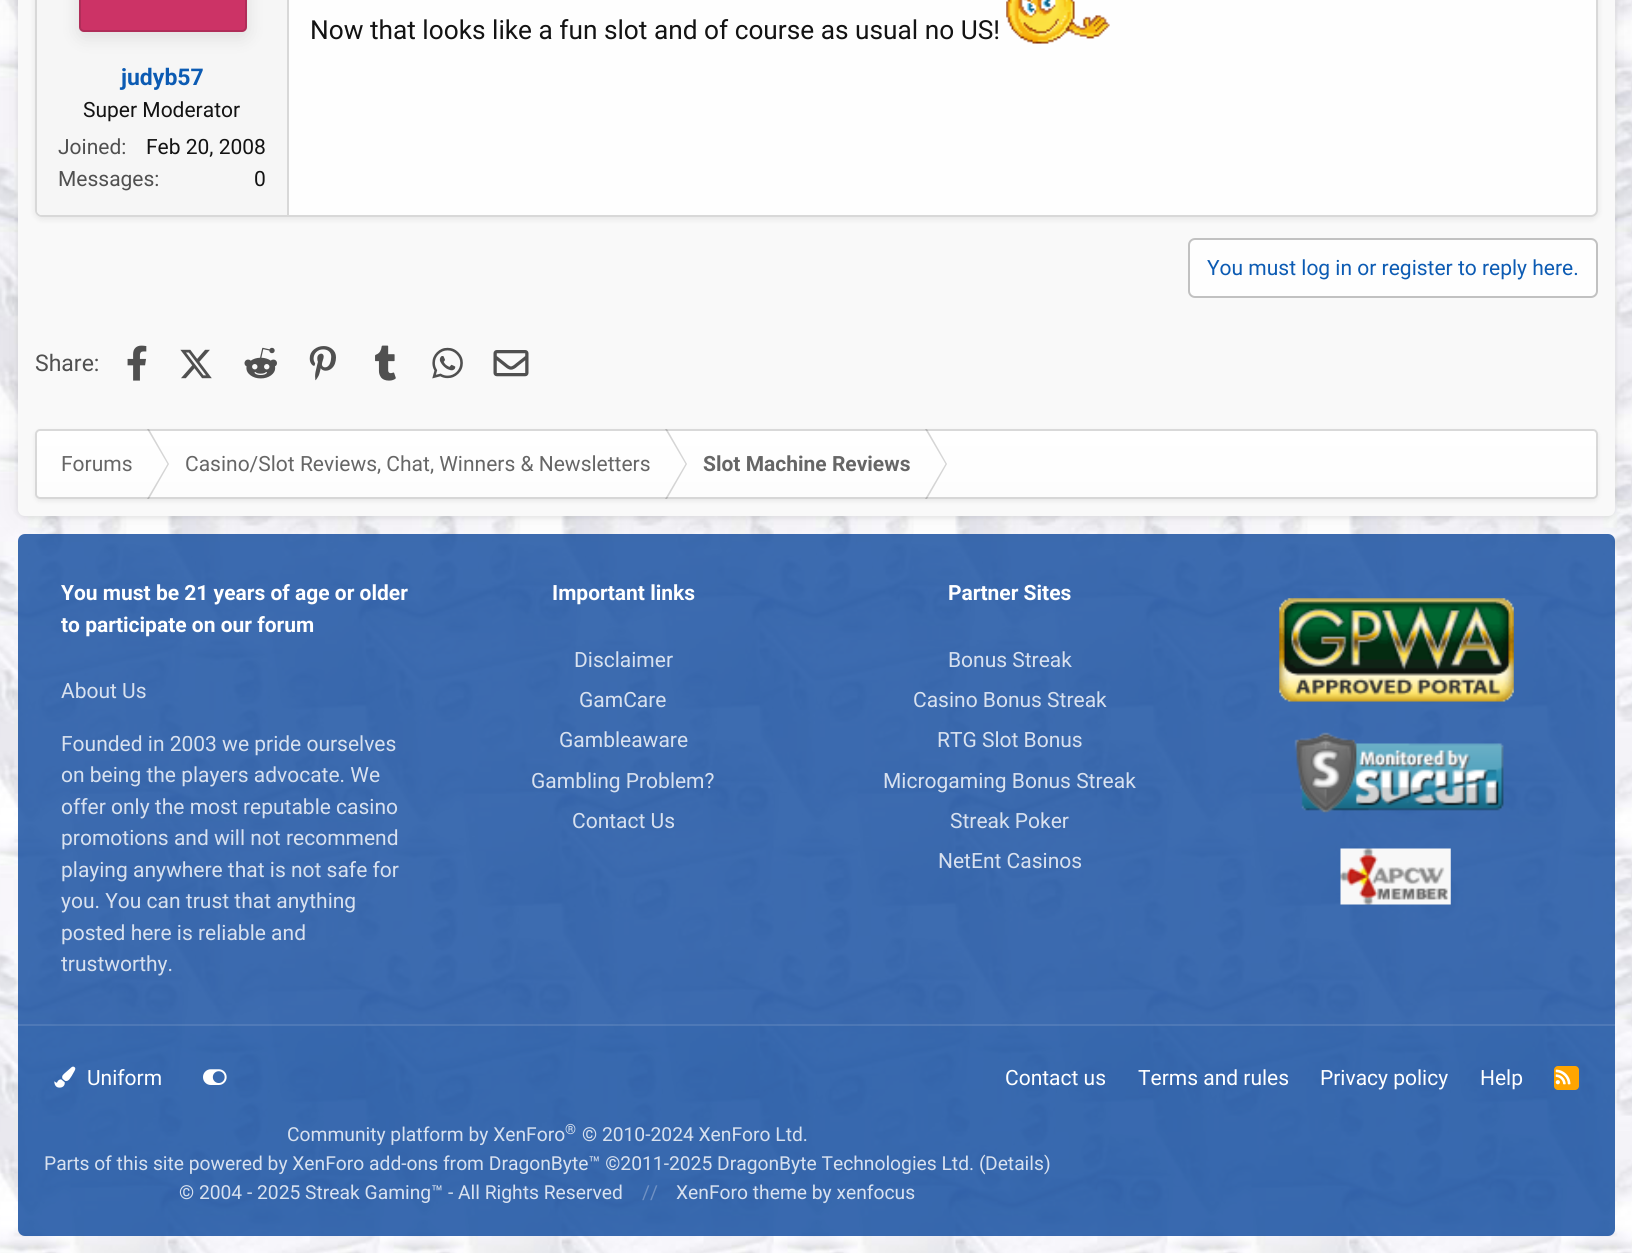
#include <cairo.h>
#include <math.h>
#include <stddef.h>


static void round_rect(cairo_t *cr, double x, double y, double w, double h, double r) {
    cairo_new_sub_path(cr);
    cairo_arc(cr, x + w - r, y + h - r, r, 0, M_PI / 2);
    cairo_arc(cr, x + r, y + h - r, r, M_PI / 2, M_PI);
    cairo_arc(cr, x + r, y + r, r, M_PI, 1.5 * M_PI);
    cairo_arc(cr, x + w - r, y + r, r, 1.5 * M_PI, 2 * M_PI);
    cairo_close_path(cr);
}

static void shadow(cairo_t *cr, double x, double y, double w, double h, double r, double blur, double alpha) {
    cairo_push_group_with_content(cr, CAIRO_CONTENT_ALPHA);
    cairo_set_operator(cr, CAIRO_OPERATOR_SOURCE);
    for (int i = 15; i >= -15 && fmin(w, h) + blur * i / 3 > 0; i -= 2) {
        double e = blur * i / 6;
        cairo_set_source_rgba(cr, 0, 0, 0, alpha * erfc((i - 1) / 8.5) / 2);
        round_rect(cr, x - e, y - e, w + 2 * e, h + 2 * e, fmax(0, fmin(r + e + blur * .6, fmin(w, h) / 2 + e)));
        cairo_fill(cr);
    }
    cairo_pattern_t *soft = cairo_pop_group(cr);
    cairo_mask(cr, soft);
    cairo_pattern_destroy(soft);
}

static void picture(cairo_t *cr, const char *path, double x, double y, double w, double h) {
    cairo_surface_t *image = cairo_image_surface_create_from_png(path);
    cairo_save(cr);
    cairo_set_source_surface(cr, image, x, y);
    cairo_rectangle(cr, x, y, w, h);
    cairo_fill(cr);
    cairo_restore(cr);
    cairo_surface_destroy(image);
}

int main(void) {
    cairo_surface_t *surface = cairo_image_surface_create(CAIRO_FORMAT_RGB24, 1632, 1253);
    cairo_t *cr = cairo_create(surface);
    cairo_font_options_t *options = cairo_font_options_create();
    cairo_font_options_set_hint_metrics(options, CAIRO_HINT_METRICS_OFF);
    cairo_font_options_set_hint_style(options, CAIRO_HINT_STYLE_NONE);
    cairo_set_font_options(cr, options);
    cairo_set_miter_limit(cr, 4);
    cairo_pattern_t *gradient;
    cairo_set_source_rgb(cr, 1, 1, 1);
    cairo_paint(cr);
    picture(cr, "img1.png", 0, 0, 1632, 1253);
    cairo_set_source_rgb(cr, 0, 0, 0);
    shadow(cr, 18, -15, 1597, 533, 7, 2.5, 0.08);
    cairo_set_source_rgba(cr, 0.098, 0.318, 0.635, 0.84);
    round_rect(cr, 18, 534, 1597, 702, 7);
    cairo_fill(cr);
    cairo_set_source_rgb(cr, 0, 0, 0);
    shadow(cr, 18, -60, 1597, 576, 7, 17.5, 0.06);
    cairo_set_source_rgb(cr, 0.976, 0.976, 0.976);
    cairo_new_path(cr);
    cairo_move_to(cr, 18, -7);
    cairo_line_to(cr, 1615, -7);
    cairo_line_to(cr, 1615, 509);
    cairo_curve_to(cr, 1615, 513, 1612, 516, 1608, 516);
    cairo_line_to(cr, 25, 516);
    cairo_curve_to(cr, 21, 516, 18, 513, 18, 509);
    cairo_close_path(cr);
    cairo_fill(cr);
    cairo_set_source_rgb(cr, 0, 0, 0);
    shadow(cr, 35, -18, 1563, 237, 7, 3.5, 0.08);
    cairo_set_source_rgb(cr, 0.996, 0.996, 0.996);
    round_rect(cr, 35, -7, 1563, 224, 7);
    cairo_fill(cr);
    round_rect(cr, 36, -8, 1561, 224, 6);
    cairo_set_source_rgba(cr, 0, 0, 0, 0.15);
    cairo_stroke(cr);
    cairo_select_font_face(cr, "Roboto", CAIRO_FONT_SLANT_NORMAL, CAIRO_FONT_WEIGHT_NORMAL);
    cairo_set_font_size(cr, 26.25);
    cairo_set_source_rgb(cr, 0.078, 0.078, 0.078);
    cairo_move_to(cr, 310, 39);
    cairo_show_text(cr, "Now that looks like a fun slot and of course as usual no US!");
    picture(cr, "img2.png", 1006, 0, 104, 44);
    cairo_set_source_rgb(cr, 0.961, 0.961, 0.961);
    cairo_new_path(cr);
    cairo_move_to(cr, 42, -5);
    cairo_line_to(cr, 289, -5);
    cairo_line_to(cr, 289, 215);
    cairo_line_to(cr, 42, 215);
    cairo_curve_to(cr, 39, 215, 37, 213, 37, 210);
    cairo_line_to(cr, 37, 0);
    cairo_curve_to(cr, 37, -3, 39, -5, 42, -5);
    cairo_close_path(cr);
    cairo_fill(cr);
    cairo_set_source_rgb(cr, 0.847, 0.847, 0.847);
    cairo_rectangle(cr, 287, 0, 2, 215);
    cairo_fill(cr);
    cairo_set_source_rgb(cr, 0, 0, 0);
    shadow(cr, 79, -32, 168, 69, 5, 9, 0.1);
    cairo_set_source_rgb(cr, 0.8, 0.2, 0.4);
    round_rect(cr, 79, -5, 168, 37, 5);
    cairo_fill(cr);
    round_rect(cr, 80, -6, 166, 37, 4);
    cairo_set_source_rgba(cr, 0.078, 0.078, 0.078, 0.15);
    cairo_stroke(cr);
    cairo_select_font_face(cr, "Roboto", CAIRO_FONT_SLANT_NORMAL, CAIRO_FONT_WEIGHT_BOLD);
    cairo_set_font_size(cr, 23);
    cairo_set_source_rgb(cr, 0.047, 0.357, 0.702);
    cairo_move_to(cr, 121, 85);
    cairo_show_text(cr, "judyb57");
    cairo_select_font_face(cr, "Roboto", CAIRO_FONT_SLANT_NORMAL, CAIRO_FONT_WEIGHT_NORMAL);
    cairo_set_font_size(cr, 21);
    cairo_set_source_rgb(cr, 0.078, 0.078, 0.078);
    cairo_move_to(cr, 83, 117);
    cairo_show_text(cr, "Super Moderator");
    cairo_set_source_rgb(cr, 0.314, 0.314, 0.314);
    cairo_move_to(cr, 58, 154);
    cairo_show_text(cr, "Joined:");
    cairo_set_source_rgb(cr, 0.078, 0.078, 0.078);
    cairo_move_to(cr, 146, 154);
    cairo_show_text(cr, "Feb 20, 2008");
    cairo_set_source_rgb(cr, 0.314, 0.314, 0.314);
    cairo_move_to(cr, 58, 186);
    cairo_show_text(cr, "Messages:");
    cairo_set_source_rgb(cr, 0.078, 0.078, 0.078);
    cairo_move_to(cr, 254, 186);
    cairo_show_text(cr, "0");
    cairo_set_source_rgb(cr, 0.996, 0.996, 0.996);
    round_rect(cr, 1189, 239, 408, 58, 6);
    cairo_fill_preserve(cr);
    cairo_set_source_rgb(cr, 0.757, 0.757, 0.757);
    cairo_stroke(cr);
    cairo_set_source_rgb(cr, 0.047, 0.357, 0.702);
    cairo_move_to(cr, 1207, 275);
    cairo_show_text(cr, "You must log in or register to reply here.");
    cairo_set_font_size(cr, 23);
    cairo_set_source_rgb(cr, 0.314, 0.314, 0.314);
    cairo_move_to(cr, 35, 371);
    cairo_show_text(cr, "Share:");
    picture(cr, "img3.png", 127, 345, 20, 36);
    picture(cr, "img4.png", 180, 349, 32, 30);
    picture(cr, "img5.png", 244, 347, 33, 32);
    picture(cr, "img6.png", 309, 346, 27, 35);
    picture(cr, "img7.png", 375, 345, 21, 36);
    picture(cr, "img8.png", 432, 347, 31, 32);
    picture(cr, "img9.png", 493, 350, 36, 27);
    cairo_set_source_rgb(cr, 0, 0, 0);
    shadow(cr, 35, 431, 1563, 70, 5, 2.5, 0.07);
    cairo_set_source_rgb(cr, 0.992, 0.992, 0.992);
    round_rect(cr, 35, 429, 1563, 70, 5);
    cairo_fill(cr);
    gradient = cairo_pattern_create_linear(816, 429, 816, 499);
    cairo_pattern_add_color_stop_rgba(gradient, 0, 1, 1, 1, 1);
    cairo_pattern_add_color_stop_rgba(gradient, 1, 1, 1, 1, 0);
    cairo_set_source(cr, gradient);
    cairo_pattern_destroy(gradient);
    round_rect(cr, 35, 429, 1563, 70, 5);
    cairo_fill(cr);
    cairo_set_source_rgb(cr, 0.835, 0.835, 0.835);
    cairo_new_path(cr);
    cairo_move_to(cr, 147, 429);
    cairo_line_to(cr, 149, 429);
    cairo_line_to(cr, 169, 464);
    cairo_line_to(cr, 167.5, 464);
    cairo_close_path(cr);
    cairo_fill(cr);
    cairo_set_source_rgb(cr, 0.831, 0.831, 0.831);
    cairo_new_path(cr);
    cairo_move_to(cr, 167.5, 464);
    cairo_line_to(cr, 169, 464);
    cairo_line_to(cr, 149, 499);
    cairo_line_to(cr, 147, 499);
    cairo_close_path(cr);
    cairo_fill(cr);
    cairo_set_source_rgb(cr, 0.835, 0.835, 0.835);
    cairo_new_path(cr);
    cairo_move_to(cr, 665, 429);
    cairo_line_to(cr, 667, 429);
    cairo_line_to(cr, 687, 464);
    cairo_line_to(cr, 685.5, 464);
    cairo_close_path(cr);
    cairo_fill(cr);
    cairo_set_source_rgb(cr, 0.831, 0.831, 0.831);
    cairo_new_path(cr);
    cairo_move_to(cr, 685.5, 464);
    cairo_line_to(cr, 687, 464);
    cairo_line_to(cr, 667, 499);
    cairo_line_to(cr, 665, 499);
    cairo_close_path(cr);
    cairo_fill(cr);
    cairo_set_source_rgb(cr, 0.835, 0.835, 0.835);
    cairo_new_path(cr);
    cairo_move_to(cr, 925, 429);
    cairo_line_to(cr, 927, 429);
    cairo_line_to(cr, 947, 464);
    cairo_line_to(cr, 945.5, 464);
    cairo_close_path(cr);
    cairo_fill(cr);
    cairo_set_source_rgb(cr, 0.831, 0.831, 0.831);
    cairo_new_path(cr);
    cairo_move_to(cr, 945.5, 464);
    cairo_line_to(cr, 947, 464);
    cairo_line_to(cr, 927, 499);
    cairo_line_to(cr, 925, 499);
    cairo_close_path(cr);
    cairo_fill(cr);
    round_rect(cr, 36, 430, 1561, 68, 4);
    cairo_set_source_rgba(cr, 0, 0, 0, 0.15);
    cairo_stroke(cr);
    cairo_set_font_size(cr, 21);
    cairo_set_source_rgb(cr, 0.4, 0.4, 0.4);
    cairo_move_to(cr, 61, 471);
    cairo_show_text(cr, "Forums");
    cairo_move_to(cr, 185, 471);
    cairo_show_text(cr, "Casino/Slot Reviews, Chat, Winners & Newsletters");
    cairo_select_font_face(cr, "Roboto", CAIRO_FONT_SLANT_NORMAL, CAIRO_FONT_WEIGHT_BOLD);
    cairo_move_to(cr, 703, 471);
    cairo_show_text(cr, "Slot Machine Reviews");
    cairo_set_source_rgba(cr, 1, 1, 1, 0.1);
    cairo_rectangle(cr, 18, 1024, 1597, 2);
    cairo_fill(cr);
    cairo_set_source_rgb(cr, 1, 1, 1);
    cairo_move_to(cr, 61, 600);
    cairo_show_text(cr, "You must be 21 years of age or older");
    cairo_move_to(cr, 61, 632);
    cairo_show_text(cr, "to participate on our forum");
    cairo_select_font_face(cr, "Roboto", CAIRO_FONT_SLANT_NORMAL, CAIRO_FONT_WEIGHT_NORMAL);
    cairo_set_source_rgb(cr, 0.847, 0.882, 0.937);
    cairo_move_to(cr, 61, 698);
    cairo_show_text(cr, "About Us");
    cairo_move_to(cr, 61, 751);
    cairo_show_text(cr, "Founded in 2003 we pride ourselves");
    cairo_move_to(cr, 61, 782);
    cairo_show_text(cr, "on being the players advocate. We");
    cairo_move_to(cr, 61, 814);
    cairo_show_text(cr, "offer only the most reputable casino");
    cairo_move_to(cr, 61, 845);
    cairo_show_text(cr, "promotions and will not recommend");
    cairo_move_to(cr, 61, 877);
    cairo_show_text(cr, "playing anywhere that is not safe for");
    cairo_move_to(cr, 61, 908);
    cairo_show_text(cr, "you. You can trust that anything");
    cairo_move_to(cr, 61, 940);
    cairo_show_text(cr, "posted here is reliable and");
    cairo_move_to(cr, 61, 971);
    cairo_show_text(cr, "trustworthy.");
    cairo_select_font_face(cr, "Roboto", CAIRO_FONT_SLANT_NORMAL, CAIRO_FONT_WEIGHT_BOLD);
    cairo_set_source_rgb(cr, 1, 1, 1);
    cairo_move_to(cr, 552, 600);
    cairo_show_text(cr, "Important links");
    cairo_select_font_face(cr, "Roboto", CAIRO_FONT_SLANT_NORMAL, CAIRO_FONT_WEIGHT_NORMAL);
    cairo_set_source_rgb(cr, 0.847, 0.882, 0.937);
    cairo_move_to(cr, 574, 667);
    cairo_show_text(cr, "Disclaimer");
    cairo_move_to(cr, 579, 707);
    cairo_show_text(cr, "GamCare");
    cairo_move_to(cr, 559, 747);
    cairo_show_text(cr, "Gambleaware");
    cairo_move_to(cr, 531, 788);
    cairo_show_text(cr, "Gambling Problem?");
    cairo_move_to(cr, 572, 828);
    cairo_show_text(cr, "Contact Us");
    cairo_select_font_face(cr, "Roboto", CAIRO_FONT_SLANT_NORMAL, CAIRO_FONT_WEIGHT_BOLD);
    cairo_set_source_rgb(cr, 1, 1, 1);
    cairo_move_to(cr, 948, 600);
    cairo_show_text(cr, "Partner Sites");
    cairo_select_font_face(cr, "Roboto", CAIRO_FONT_SLANT_NORMAL, CAIRO_FONT_WEIGHT_NORMAL);
    cairo_set_source_rgb(cr, 0.847, 0.882, 0.937);
    cairo_move_to(cr, 948, 667);
    cairo_show_text(cr, "Bonus Streak");
    cairo_move_to(cr, 913, 707);
    cairo_show_text(cr, "Casino Bonus Streak");
    cairo_move_to(cr, 937, 747);
    cairo_show_text(cr, "RTG Slot Bonus");
    cairo_move_to(cr, 883, 788);
    cairo_show_text(cr, "Microgaming Bonus Streak");
    cairo_move_to(cr, 950, 828);
    cairo_show_text(cr, "Streak Poker");
    cairo_move_to(cr, 938, 868);
    cairo_show_text(cr, "NetEnt Casinos");
    picture(cr, "img10.png", 1279, 598, 235, 104);
    picture(cr, "img11.png", 1294, 732, 210, 82);
    picture(cr, "img12.png", 1340, 848, 111, 57);
    cairo_set_source_rgba(cr, 0.098, 0.318, 0.635, 0.1);
    cairo_new_path(cr);
    cairo_move_to(cr, 18, 1026);
    cairo_line_to(cr, 1615, 1026);
    cairo_line_to(cr, 1615, 1229);
    cairo_curve_to(cr, 1615, 1233, 1612, 1236, 1608, 1236);
    cairo_line_to(cr, 25, 1236);
    cairo_curve_to(cr, 21, 1236, 18, 1233, 18, 1229);
    cairo_close_path(cr);
    cairo_fill(cr);
    picture(cr, "img13.png", 54, 1066, 22, 22);
    cairo_set_source_rgb(cr, 1, 1, 1);
    cairo_move_to(cr, 87, 1085);
    cairo_show_text(cr, "Uniform");
    picture(cr, "img14.png", 203, 1069, 24, 16);
    cairo_move_to(cr, 1005, 1085);
    cairo_show_text(cr, "Contact us");
    cairo_move_to(cr, 1138, 1085);
    cairo_show_text(cr, "Terms and rules");
    cairo_move_to(cr, 1320, 1085);
    cairo_show_text(cr, "Privacy policy");
    cairo_move_to(cr, 1480, 1085);
    cairo_show_text(cr, "Help");
    cairo_set_source_rgb(cr, 1, 0.647, 0);
    round_rect(cr, 1554, 1066, 25, 24, 4);
    cairo_fill(cr);
    picture(cr, "img15.png", 1555, 1069, 16, 16);
    cairo_set_font_size(cr, 19.25);
    cairo_set_source_rgb(cr, 0.847, 0.882, 0.937);
    cairo_move_to(cr, 287, 1141);
    cairo_show_text(cr, "Community platform by XenForo");
    cairo_set_font_size(cr, 14);
    cairo_move_to(cr, 565, 1134);
    cairo_show_text(cr, "®");
    cairo_set_font_size(cr, 19.25);
    cairo_move_to(cr, 582, 1141);
    cairo_show_text(cr, "© 2010-2024 XenForo Ltd.");
    cairo_move_to(cr, 44, 1170);
    cairo_show_text(cr, "Parts of this site powered by XenForo add-ons from DragonByte™ ©2011-2025 DragonByte Technologies Ltd.");
    cairo_move_to(cr, 979, 1170);
    cairo_show_text(cr, "(");
    cairo_move_to(cr, 985, 1170);
    cairo_show_text(cr, "Details)");
    cairo_move_to(cr, 179, 1199);
    cairo_show_text(cr, "© 2004 - 2025 Streak Gaming™ - All Rights Reserved");
    cairo_set_source_rgb(cr, 0.435, 0.569, 0.765);
    cairo_move_to(cr, 642, 1199);
    cairo_show_text(cr, "//");
    cairo_set_source_rgb(cr, 0.847, 0.882, 0.937);
    cairo_move_to(cr, 676, 1199);
    cairo_show_text(cr, "XenForo theme by xenfocus");
    cairo_surface_write_to_png(surface, "page.png");
    cairo_font_options_destroy(options);
    cairo_destroy(cr);
    cairo_surface_destroy(surface);
    return 0;
}
